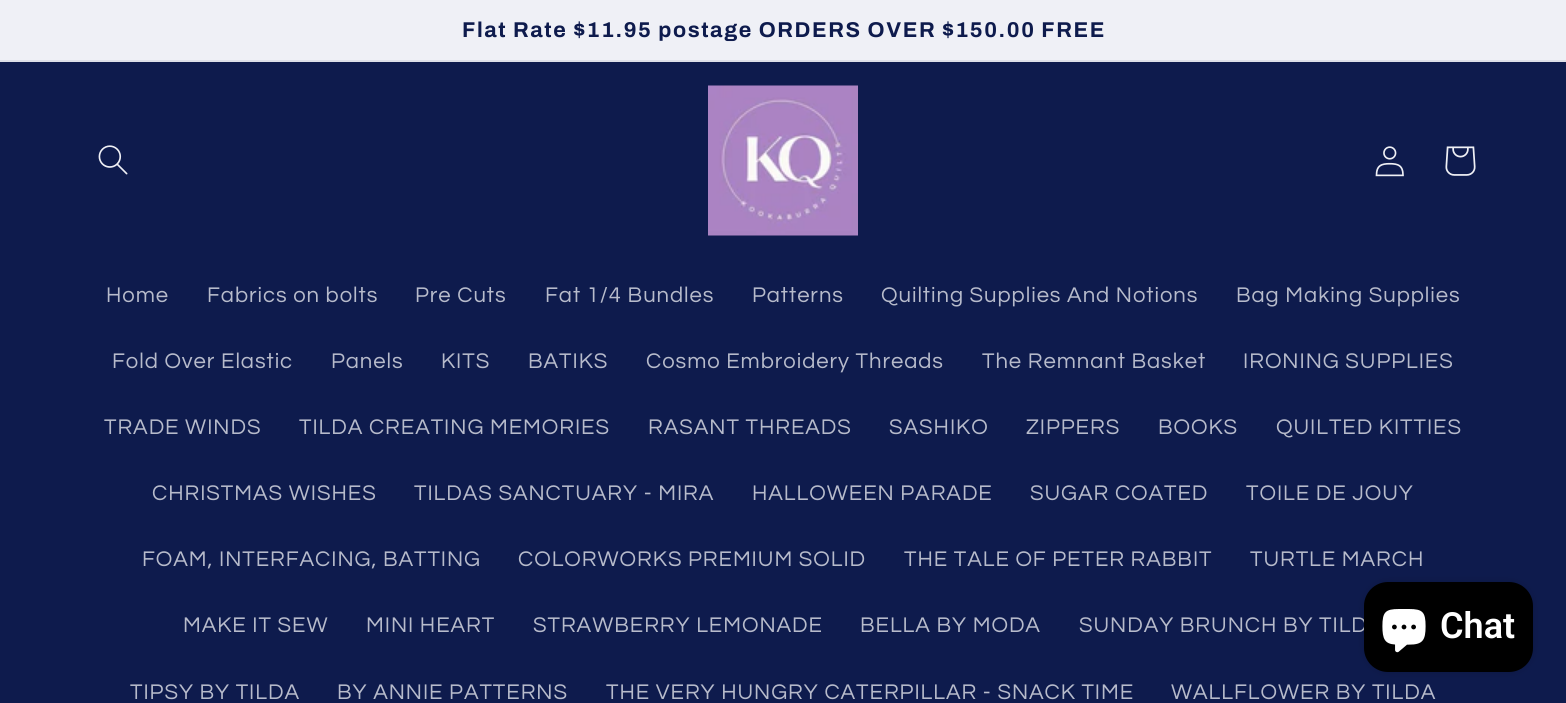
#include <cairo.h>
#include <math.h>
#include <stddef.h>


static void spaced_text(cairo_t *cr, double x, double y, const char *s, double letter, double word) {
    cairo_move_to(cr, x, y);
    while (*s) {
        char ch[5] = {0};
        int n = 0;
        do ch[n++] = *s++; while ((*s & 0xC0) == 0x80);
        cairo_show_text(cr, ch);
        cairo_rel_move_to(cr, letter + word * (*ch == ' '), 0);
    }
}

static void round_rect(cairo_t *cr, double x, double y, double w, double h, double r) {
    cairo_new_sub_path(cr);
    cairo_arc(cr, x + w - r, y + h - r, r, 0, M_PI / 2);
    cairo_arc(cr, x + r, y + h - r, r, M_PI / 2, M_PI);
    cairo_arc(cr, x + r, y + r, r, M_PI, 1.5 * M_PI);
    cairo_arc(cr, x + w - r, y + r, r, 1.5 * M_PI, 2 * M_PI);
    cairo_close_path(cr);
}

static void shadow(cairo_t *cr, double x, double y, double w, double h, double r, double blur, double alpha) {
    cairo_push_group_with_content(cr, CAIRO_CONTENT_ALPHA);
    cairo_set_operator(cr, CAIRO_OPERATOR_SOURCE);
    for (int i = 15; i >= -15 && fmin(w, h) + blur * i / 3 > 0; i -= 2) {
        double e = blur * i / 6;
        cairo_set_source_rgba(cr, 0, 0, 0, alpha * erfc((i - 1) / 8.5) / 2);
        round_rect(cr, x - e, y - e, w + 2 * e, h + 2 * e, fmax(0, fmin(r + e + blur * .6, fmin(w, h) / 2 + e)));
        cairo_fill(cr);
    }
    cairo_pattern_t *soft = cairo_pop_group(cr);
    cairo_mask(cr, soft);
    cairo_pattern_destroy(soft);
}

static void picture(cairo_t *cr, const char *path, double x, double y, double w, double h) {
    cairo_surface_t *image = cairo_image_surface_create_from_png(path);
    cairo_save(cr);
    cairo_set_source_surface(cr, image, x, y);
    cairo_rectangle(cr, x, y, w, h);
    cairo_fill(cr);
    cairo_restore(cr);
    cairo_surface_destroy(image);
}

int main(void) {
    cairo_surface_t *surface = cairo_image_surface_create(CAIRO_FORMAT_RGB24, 1566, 703);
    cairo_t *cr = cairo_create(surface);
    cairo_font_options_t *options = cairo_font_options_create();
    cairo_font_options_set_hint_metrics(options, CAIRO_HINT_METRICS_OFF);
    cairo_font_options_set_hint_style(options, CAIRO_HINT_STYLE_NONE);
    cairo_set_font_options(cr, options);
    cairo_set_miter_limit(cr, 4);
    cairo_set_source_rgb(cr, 0.937, 0.941, 0.961);
    cairo_paint(cr);
    cairo_set_source_rgb(cr, 0.867, 0.875, 0.91);
    cairo_rectangle(cr, 0, 60, 1566, 2);
    cairo_fill(cr);
    cairo_select_font_face(cr, "Archivo", CAIRO_FONT_SLANT_NORMAL, CAIRO_FONT_WEIGHT_BOLD);
    cairo_set_font_size(cr, 21.45);
    cairo_set_source_rgb(cr, 0.055, 0.106, 0.302);
    spaced_text(cr, 462, 37, "Flat Rate $11.95 postage ORDERS OVER $150.00 FREE", 1.6, 0);
    cairo_rectangle(cr, 0, 62, 1566, 641);
    cairo_fill(cr);
    picture(cr, "img1.png", 98, 145, 30, 30);
    picture(cr, "img2.png", 708, 85, 150, 151);
    picture(cr, "img3.png", 1375, 146, 29, 31);
    picture(cr, "img4.png", 1445, 146, 31, 30);
    cairo_select_font_face(cr, "Questrial", CAIRO_FONT_SLANT_NORMAL, CAIRO_FONT_WEIGHT_NORMAL);
    cairo_set_font_size(cr, 22.05);
    cairo_set_source_rgb(cr, 0.718, 0.733, 0.796);
    spaced_text(cr, 106, 302, "Home", 0.95, 0);
    spaced_text(cr, 207, 302, "Fabrics on bolts", 0.95, 0);
    spaced_text(cr, 415, 302, "Pre Cuts", 0.95, 0);
    spaced_text(cr, 545, 302, "Fat 1/4 Bundles", 0.95, 0);
    spaced_text(cr, 752, 302, "Patterns", 0.95, 0);
    spaced_text(cr, 881, 302, "Quilting Supplies And Notions", 0.95, 0);
    spaced_text(cr, 1236, 302, "Bag Making Supplies", 0.95, 0);
    spaced_text(cr, 112, 368, "Fold Over Elastic", 0.95, 0);
    spaced_text(cr, 331, 368, "Panels", 0.95, 0);
    spaced_text(cr, 441, 368, "KITS", 0.95, 0);
    spaced_text(cr, 528, 368, "BATIKS", 0.95, 0);
    spaced_text(cr, 646, 368, "Cosmo Embroidery Threads", 0.95, 0);
    spaced_text(cr, 982, 368, "The Remnant Basket", 0.95, 0);
    spaced_text(cr, 1243, 368, "IRONING SUPPLIES", 0.95, 0);
    spaced_text(cr, 104, 434, "TRADE WINDS", 0.95, 0);
    spaced_text(cr, 299, 434, "TILDA CREATING MEMORIES", 0.95, 0);
    spaced_text(cr, 648, 434, "RASANT THREADS", 0.95, 0);
    spaced_text(cr, 889, 434, "SASHIKO", 0.95, 0);
    spaced_text(cr, 1026, 434, "ZIPPERS", 0.95, 0);
    spaced_text(cr, 1158, 434, "BOOKS", 0.95, 0);
    spaced_text(cr, 1276, 434, "QUILTED KITTIES", 0.95, 0);
    spaced_text(cr, 152, 500, "CHRISTMAS WISHES", 0.95, 0);
    spaced_text(cr, 414, 500, "TILDAS SANCTUARY - MIRA", 0.95, 0);
    spaced_text(cr, 752, 500, "HALLOWEEN PARADE", 0.95, 0);
    spaced_text(cr, 1030, 500, "SUGAR COATED", 0.95, 0);
    spaced_text(cr, 1246, 500, "TOILE DE JOUY", 0.95, 0);
    spaced_text(cr, 142, 566, "FOAM, INTERFACING, BATTING", 0.95, 0);
    spaced_text(cr, 518, 566, "COLORWORKS PREMIUM SOLID", 0.95, 0);
    spaced_text(cr, 904, 566, "THE TALE OF PETER RABBIT", 0.95, 0);
    spaced_text(cr, 1250, 566, "TURTLE MARCH", 0.95, 0);
    spaced_text(cr, 183, 632, "MAKE IT SEW", 0.95, 0);
    spaced_text(cr, 366, 632, "MINI HEART", 0.95, 0);
    spaced_text(cr, 533, 632, "STRAWBERRY LEMONADE", 0.95, 0);
    spaced_text(cr, 860, 632, "BELLA BY MODA", 0.95, 0);
    spaced_text(cr, 1079, 632, "SUNDAY BRUNCH BY TILD", 0.95, 0);
    spaced_text(cr, 130, 699, "TIPSY BY TILDA", 0.95, 0);
    spaced_text(cr, 337, 699, "BY ANNIE PATTERNS", 0.95, 0);
    spaced_text(cr, 606, 699, "THE VERY HUNGRY CATERPILLAR - SNACK TIME", 0.95, 0);
    spaced_text(cr, 1171, 699, "WALLFLOWER BY TILDA", 0.95, 0);
    cairo_set_source_rgb(cr, 0, 0, 0);
    shadow(cr, 1364, 582, 169, 90, 24, 4, 0.15);
    cairo_set_source_rgb(cr, 0, 0, 0);
    round_rect(cr, 1364, 582, 169, 90, 24);
    cairo_fill(cr);
    picture(cr, "img5.png", 1382, 609, 44, 44);
    cairo_select_font_face(cr, "Roboto SemiBold", CAIRO_FONT_SLANT_NORMAL, CAIRO_FONT_WEIGHT_NORMAL);
    cairo_set_font_size(cr, 36);
    cairo_set_source_rgb(cr, 1, 1, 1);
    cairo_move_to(cr, 1440, 638);
    cairo_show_text(cr, "Chat");
    cairo_surface_write_to_png(surface, "page.png");
    cairo_font_options_destroy(options);
    cairo_destroy(cr);
    cairo_surface_destroy(surface);
    return 0;
}
